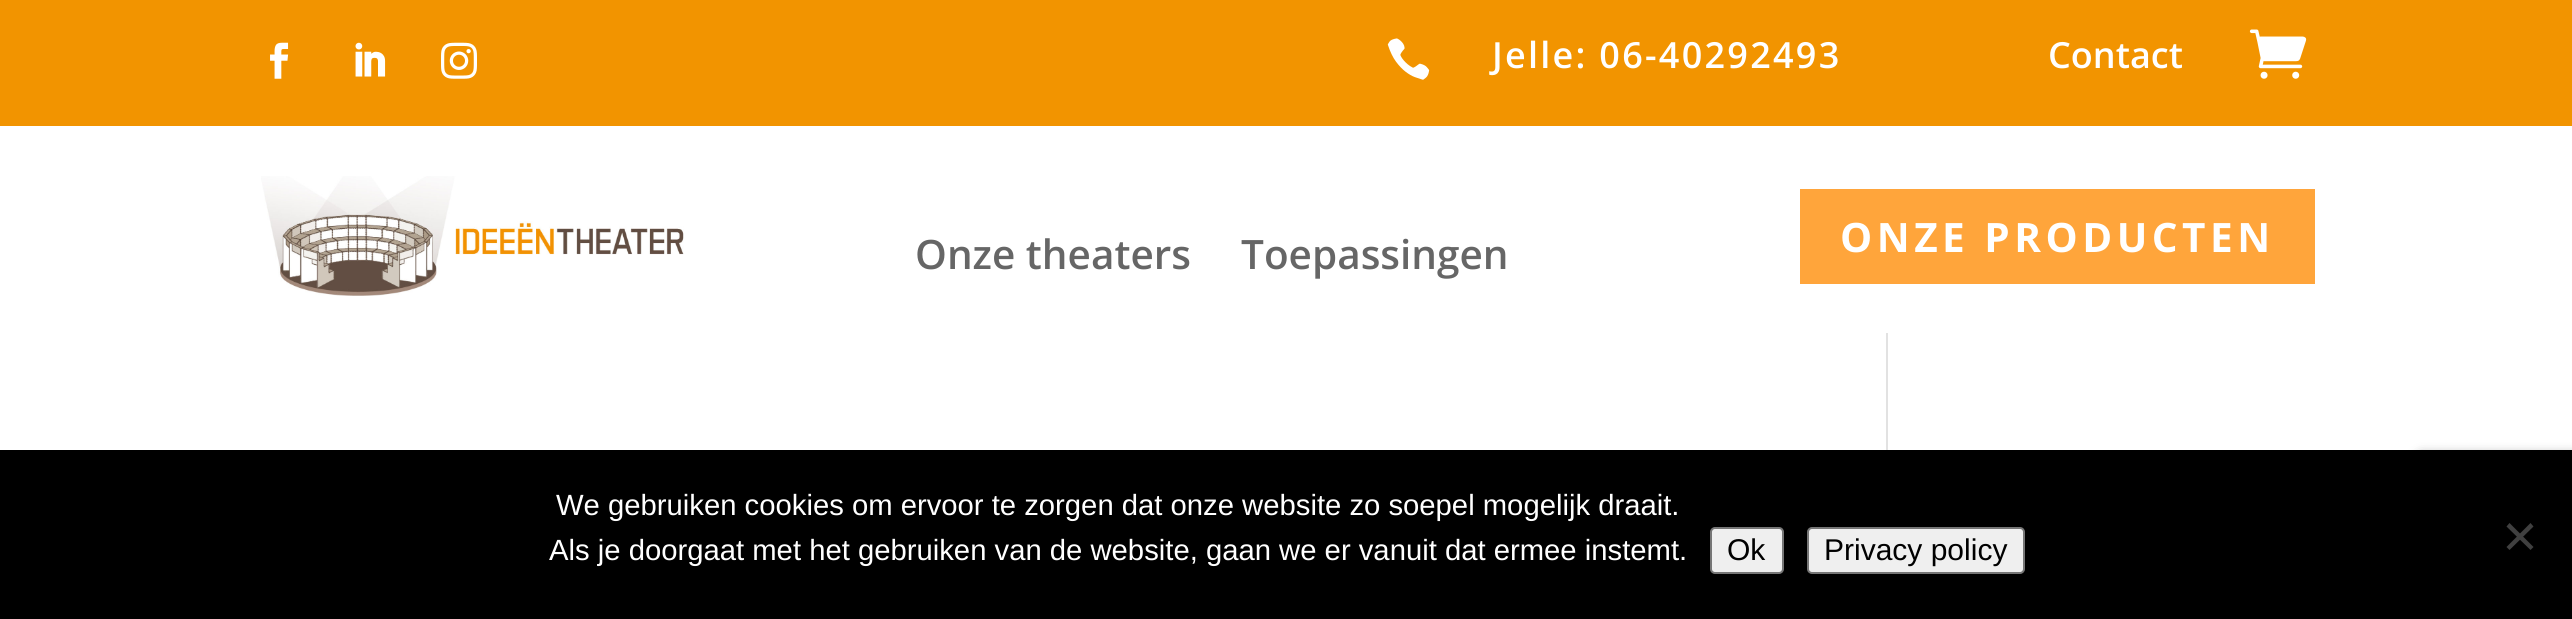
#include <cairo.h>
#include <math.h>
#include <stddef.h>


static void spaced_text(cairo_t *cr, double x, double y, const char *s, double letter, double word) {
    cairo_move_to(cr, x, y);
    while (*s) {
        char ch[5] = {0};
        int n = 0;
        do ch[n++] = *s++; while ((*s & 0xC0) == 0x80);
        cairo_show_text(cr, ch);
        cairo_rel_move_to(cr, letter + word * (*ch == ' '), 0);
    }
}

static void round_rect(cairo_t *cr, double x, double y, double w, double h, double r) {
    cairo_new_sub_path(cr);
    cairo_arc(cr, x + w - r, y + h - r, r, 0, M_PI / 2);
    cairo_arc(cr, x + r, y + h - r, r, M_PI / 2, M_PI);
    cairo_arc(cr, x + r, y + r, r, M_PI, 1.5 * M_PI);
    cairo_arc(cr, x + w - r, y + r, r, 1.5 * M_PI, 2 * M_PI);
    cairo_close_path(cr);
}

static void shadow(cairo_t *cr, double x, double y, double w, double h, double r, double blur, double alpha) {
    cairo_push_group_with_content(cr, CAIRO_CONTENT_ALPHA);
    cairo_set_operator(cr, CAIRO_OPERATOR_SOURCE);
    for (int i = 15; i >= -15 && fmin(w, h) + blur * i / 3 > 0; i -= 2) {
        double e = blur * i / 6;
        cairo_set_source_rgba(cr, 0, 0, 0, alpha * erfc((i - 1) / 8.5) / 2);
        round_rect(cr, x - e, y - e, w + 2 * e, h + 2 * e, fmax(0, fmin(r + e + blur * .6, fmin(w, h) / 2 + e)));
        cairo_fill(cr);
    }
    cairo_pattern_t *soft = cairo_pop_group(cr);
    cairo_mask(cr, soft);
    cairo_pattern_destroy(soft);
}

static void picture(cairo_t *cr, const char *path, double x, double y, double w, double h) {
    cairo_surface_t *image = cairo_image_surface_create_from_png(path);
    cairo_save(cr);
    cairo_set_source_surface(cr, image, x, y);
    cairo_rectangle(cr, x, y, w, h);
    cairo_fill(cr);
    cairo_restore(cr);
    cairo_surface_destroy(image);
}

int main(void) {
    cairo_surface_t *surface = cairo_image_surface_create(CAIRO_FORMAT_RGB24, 2572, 619);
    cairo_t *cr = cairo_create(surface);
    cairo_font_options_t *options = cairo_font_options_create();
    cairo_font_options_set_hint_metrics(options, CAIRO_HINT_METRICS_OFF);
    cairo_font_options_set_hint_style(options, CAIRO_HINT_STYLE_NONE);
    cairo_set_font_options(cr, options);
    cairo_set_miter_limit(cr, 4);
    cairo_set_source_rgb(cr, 1, 1, 1);
    cairo_paint(cr);
    cairo_set_source_rgb(cr, 0.949, 0.58, 0);
    cairo_rectangle(cr, 0, 0, 2572, 126);
    cairo_fill(cr);
    picture(cr, "img1.png", 270, 42, 19, 37);
    picture(cr, "img2.png", 355, 42, 31, 35);
    picture(cr, "img3.png", 441, 42, 36, 37);
    picture(cr, "img4.png", 1387, 38, 43, 42);
    cairo_select_font_face(cr, "Open Sans SemiBold", CAIRO_FONT_SLANT_NORMAL, CAIRO_FONT_WEIGHT_NORMAL);
    cairo_set_font_size(cr, 36);
    cairo_set_source_rgb(cr, 1, 1, 1);
    spaced_text(cr, 1492, 68, "Jelle: 06-40292493", 2.25, 0);
    cairo_move_to(cr, 2048, 68);
    cairo_show_text(cr, "Contact");
    picture(cr, "img5.png", 2249, 29, 58, 50);
    picture(cr, "img6.png", 261, 176, 423, 120);
    cairo_set_font_size(cr, 40.5);
    cairo_set_source_rgb(cr, 0.4, 0.4, 0.4);
    cairo_move_to(cr, 915, 269);
    cairo_show_text(cr, "Onze theaters");
    cairo_move_to(cr, 1241, 269);
    cairo_show_text(cr, "Toepassingen");
    cairo_set_source_rgb(cr, 1, 0.647, 0.231);
    cairo_rectangle(cr, 1800, 189, 515, 95);
    cairo_fill(cr);
    cairo_select_font_face(cr, "Open Sans", CAIRO_FONT_SLANT_NORMAL, CAIRO_FONT_WEIGHT_BOLD);
    cairo_set_source_rgb(cr, 1, 1, 1);
    spaced_text(cr, 1840, 252, "ONZE PRODUCTEN", 4.5, 0);
    cairo_set_source_rgb(cr, 0.886, 0.886, 0.886);
    cairo_rectangle(cr, 1886, 333, 2, 117);
    cairo_fill(cr);
    cairo_set_source_rgb(cr, 0.502, 0.502, 0.502);
    shadow(cr, 2417, 455, 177, 135, 5, 5.5, 1);
    cairo_set_source_rgb(cr, 0, 0, 0);
    cairo_rectangle(cr, 0, 450, 2572, 169);
    cairo_fill(cr);
    cairo_select_font_face(cr, "Liberation Sans", CAIRO_FONT_SLANT_NORMAL, CAIRO_FONT_WEIGHT_NORMAL);
    cairo_set_font_size(cr, 29.25);
    cairo_set_source_rgb(cr, 1, 1, 1);
    cairo_move_to(cr, 556, 515);
    cairo_show_text(cr, "We gebruiken cookies om ervoor te zorgen dat onze website zo soepel mogelijk draait.");
    cairo_move_to(cr, 549, 560);
    cairo_show_text(cr, "Als je doorgaat met het gebruiken van de website, gaan we er vanuit dat ermee instemt.");
    cairo_set_source_rgb(cr, 0.937, 0.937, 0.937);
    round_rect(cr, 1711, 528, 72, 45, 4);
    cairo_fill_preserve(cr);
    cairo_set_source_rgb(cr, 0.463, 0.463, 0.463);
    cairo_stroke(cr);
    cairo_set_font_size(cr, 30);
    cairo_set_source_rgb(cr, 0, 0, 0);
    cairo_move_to(cr, 1727, 560);
    cairo_show_text(cr, "Ok");
    cairo_set_source_rgb(cr, 0.937, 0.937, 0.937);
    round_rect(cr, 1808, 528, 216, 45, 4);
    cairo_fill_preserve(cr);
    cairo_set_source_rgb(cr, 0.463, 0.463, 0.463);
    cairo_stroke(cr);
    cairo_set_source_rgb(cr, 0, 0, 0);
    cairo_move_to(cr, 1824, 560);
    cairo_show_text(cr, "Privacy policy");
    cairo_set_source_rgb(cr, 0.251, 0.251, 0.251);
    cairo_new_path(cr);
    cairo_move_to(cr, 2530.5, 523);
    cairo_line_to(cr, 2533.5, 526.5);
    cairo_line_to(cr, 2509.5, 550);
    cairo_line_to(cr, 2506.5, 547);
    cairo_close_path(cr);
    cairo_fill(cr);
    cairo_new_path(cr);
    cairo_move_to(cr, 2506.5, 526.5);
    cairo_line_to(cr, 2509.5, 523);
    cairo_line_to(cr, 2533.5, 547);
    cairo_line_to(cr, 2530.5, 550);
    cairo_close_path(cr);
    cairo_fill(cr);
    cairo_surface_write_to_png(surface, "page.png");
    cairo_font_options_destroy(options);
    cairo_destroy(cr);
    cairo_surface_destroy(surface);
    return 0;
}
